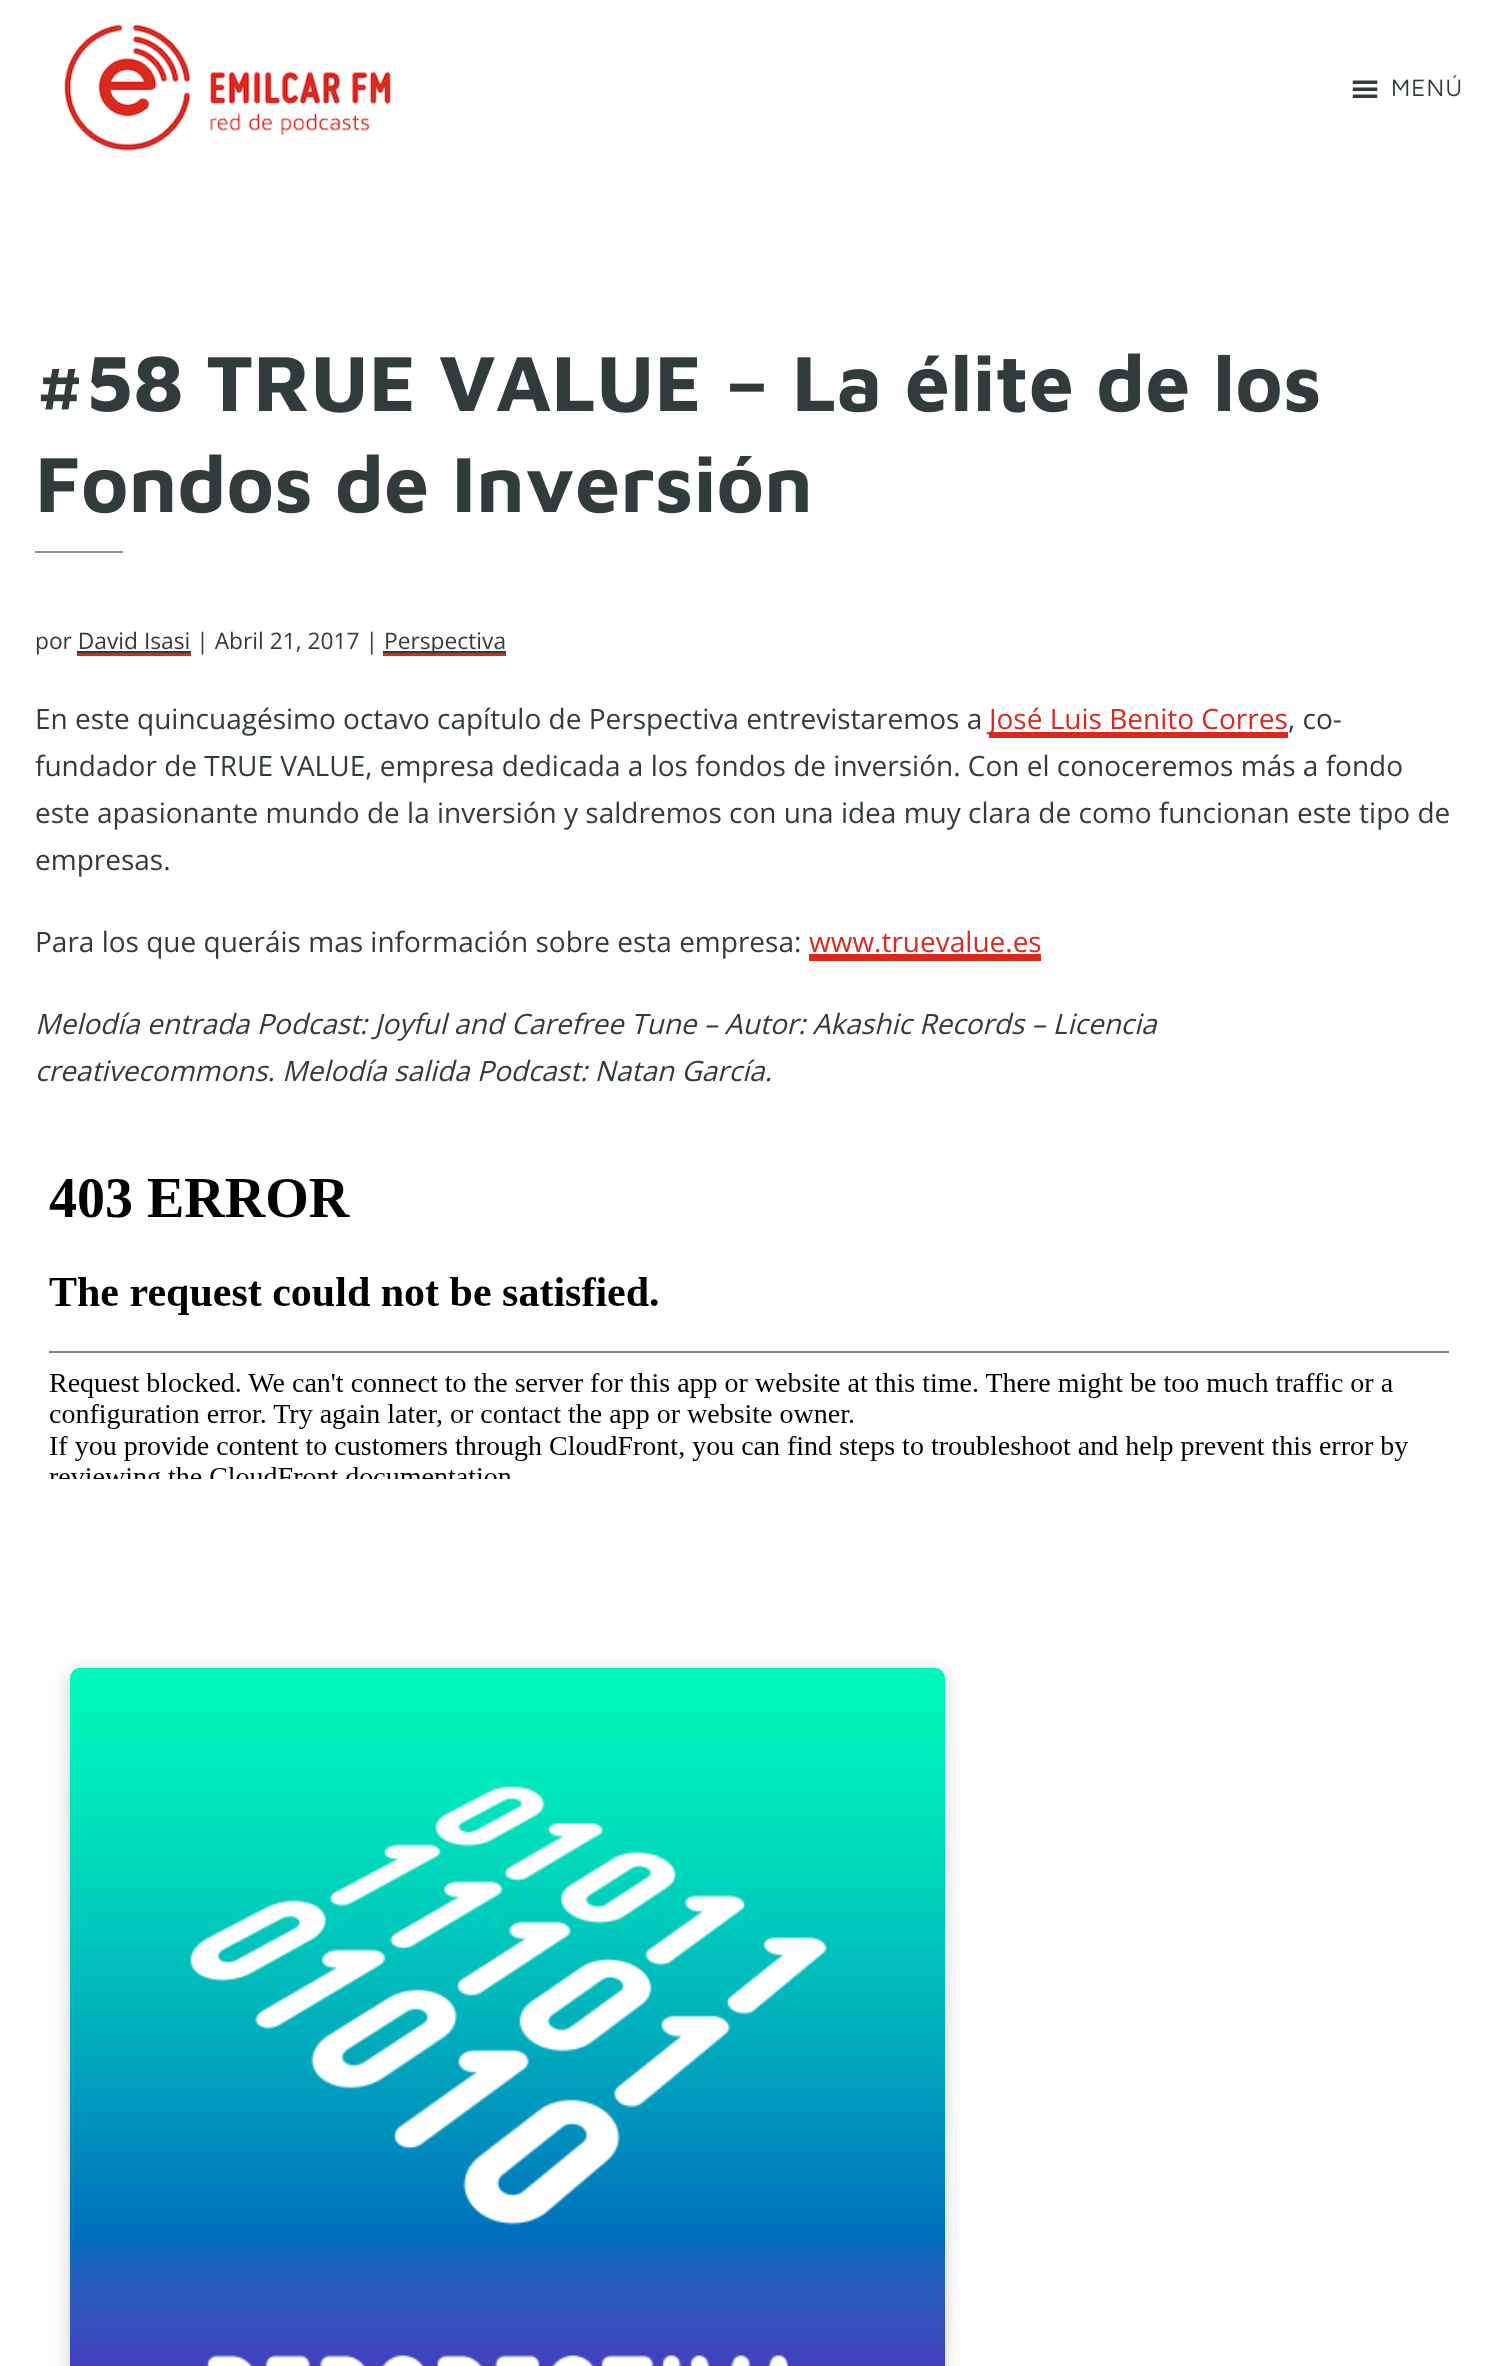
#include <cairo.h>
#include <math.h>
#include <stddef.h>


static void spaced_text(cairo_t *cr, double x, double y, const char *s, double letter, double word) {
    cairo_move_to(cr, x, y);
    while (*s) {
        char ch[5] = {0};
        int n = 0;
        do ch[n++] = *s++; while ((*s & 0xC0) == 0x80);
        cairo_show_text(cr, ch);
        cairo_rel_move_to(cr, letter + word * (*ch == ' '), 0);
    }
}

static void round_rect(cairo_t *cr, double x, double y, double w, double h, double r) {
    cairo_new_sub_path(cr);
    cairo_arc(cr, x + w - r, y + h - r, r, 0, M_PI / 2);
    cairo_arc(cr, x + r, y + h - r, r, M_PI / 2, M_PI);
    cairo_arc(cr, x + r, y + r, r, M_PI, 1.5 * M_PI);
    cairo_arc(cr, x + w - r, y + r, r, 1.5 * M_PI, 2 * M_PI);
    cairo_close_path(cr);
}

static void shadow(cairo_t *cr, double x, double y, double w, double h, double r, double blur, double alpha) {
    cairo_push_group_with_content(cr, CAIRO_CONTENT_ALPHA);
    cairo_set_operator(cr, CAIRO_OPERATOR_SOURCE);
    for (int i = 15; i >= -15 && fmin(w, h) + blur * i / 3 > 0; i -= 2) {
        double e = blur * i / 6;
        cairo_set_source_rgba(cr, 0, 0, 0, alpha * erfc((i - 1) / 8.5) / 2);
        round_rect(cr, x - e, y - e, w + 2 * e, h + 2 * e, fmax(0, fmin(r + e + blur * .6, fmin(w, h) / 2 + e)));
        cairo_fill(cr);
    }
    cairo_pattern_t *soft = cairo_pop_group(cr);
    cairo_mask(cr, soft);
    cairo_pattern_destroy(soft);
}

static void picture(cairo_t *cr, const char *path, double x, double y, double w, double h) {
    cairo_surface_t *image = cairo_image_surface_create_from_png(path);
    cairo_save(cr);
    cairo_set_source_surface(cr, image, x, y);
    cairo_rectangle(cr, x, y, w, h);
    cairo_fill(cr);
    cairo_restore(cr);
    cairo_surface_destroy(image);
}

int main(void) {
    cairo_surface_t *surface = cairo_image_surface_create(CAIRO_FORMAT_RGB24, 1497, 2366);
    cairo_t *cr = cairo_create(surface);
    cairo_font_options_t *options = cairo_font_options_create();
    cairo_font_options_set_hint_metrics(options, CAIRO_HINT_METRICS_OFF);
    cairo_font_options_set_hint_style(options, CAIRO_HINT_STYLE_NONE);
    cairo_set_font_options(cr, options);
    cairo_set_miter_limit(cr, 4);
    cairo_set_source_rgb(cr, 1, 1, 1);
    cairo_paint(cr);
    picture(cr, "img1.png", 64, 24, 327, 127);
    picture(cr, "img2.png", 1352, 80, 26, 18);
    cairo_select_font_face(cr, "Maven Pro", CAIRO_FONT_SLANT_NORMAL, CAIRO_FONT_WEIGHT_NORMAL);
    cairo_set_font_size(cr, 24.5);
    cairo_set_source_rgb(cr, 0.196, 0.231, 0.235);
    spaced_text(cr, 1391, 96, "MENÚ", 1, 0);
    cairo_select_font_face(cr, "Maven Pro", CAIRO_FONT_SLANT_NORMAL, CAIRO_FONT_WEIGHT_BOLD);
    cairo_set_font_size(cr, 80.5);
    cairo_move_to(cr, 35, 411);
    cairo_show_text(cr, "#58 TRUE VALUE – La élite de los");
    cairo_move_to(cr, 35, 512);
    cairo_show_text(cr, "Fondos de Inversión");
    cairo_set_source_rgb(cr, 0.576, 0.557, 0.557);
    cairo_rectangle(cr, 35, 551, 88, 2);
    cairo_fill(cr);
    cairo_select_font_face(cr, "Open Sans", CAIRO_FONT_SLANT_NORMAL, CAIRO_FONT_WEIGHT_NORMAL);
    cairo_set_font_size(cr, 22.75);
    cairo_set_source_rgb(cr, 0.196, 0.231, 0.235);
    cairo_move_to(cr, 35, 649);
    cairo_show_text(cr, "por David Isasi | Abril 21, 2017 |");
    cairo_set_source_rgb(cr, 0.855, 0.161, 0.11);
    cairo_rectangle(cr, 383, 653, 123, 3);
    cairo_fill(cr);
    cairo_set_source_rgb(cr, 0.196, 0.231, 0.235);
    cairo_rectangle(cr, 383, 651, 123, 2);
    cairo_fill(cr);
    cairo_move_to(cr, 384, 649);
    cairo_show_text(cr, "Perspectiva");
    cairo_rectangle(cr, 77, 651, 114, 2);
    cairo_fill(cr);
    cairo_set_source_rgb(cr, 0.855, 0.161, 0.11);
    cairo_rectangle(cr, 77, 653, 114, 3);
    cairo_fill(cr);
    cairo_set_font_size(cr, 28);
    cairo_set_source_rgb(cr, 0.196, 0.231, 0.235);
    cairo_move_to(cr, 35, 729);
    cairo_show_text(cr, "En este quincuagésimo octavo capítulo de Perspectiva entrevistaremos a");
    cairo_set_source_rgb(cr, 0.855, 0.161, 0.11);
    cairo_rectangle(cr, 989, 732, 299, 6);
    cairo_fill(cr);
    cairo_move_to(cr, 989, 729);
    cairo_show_text(cr, "José Luis Benito Corres");
    cairo_set_source_rgb(cr, 0.196, 0.231, 0.235);
    cairo_move_to(cr, 1288, 729);
    cairo_show_text(cr, ", co-");
    cairo_move_to(cr, 35, 776);
    cairo_show_text(cr, "fundador de TRUE VALUE, empresa dedicada a los fondos de inversión. Con el conoceremos más a fondo");
    cairo_move_to(cr, 35, 823);
    cairo_show_text(cr, "este apasionante mundo de la inversión y saldremos con una idea muy clara de como funcionan este tipo de");
    cairo_move_to(cr, 35, 870);
    cairo_show_text(cr, "empresas.");
    cairo_move_to(cr, 35, 952);
    cairo_show_text(cr, "Para los que queráis mas información sobre esta empresa:");
    cairo_set_source_rgb(cr, 0.855, 0.161, 0.11);
    cairo_move_to(cr, 809, 952);
    cairo_show_text(cr, "www.truevalue.es");
    cairo_rectangle(cr, 809, 954, 232, 7);
    cairo_fill(cr);
    cairo_select_font_face(cr, "Open Sans", CAIRO_FONT_SLANT_ITALIC, CAIRO_FONT_WEIGHT_NORMAL);
    cairo_set_source_rgb(cr, 0.196, 0.231, 0.235);
    cairo_move_to(cr, 35, 1034);
    cairo_show_text(cr, "Melodía entrada Podcast: Joyful and Carefree Tune – Autor: Akashic Records – Licencia");
    cairo_move_to(cr, 35, 1081);
    cairo_show_text(cr, "creativecommons. Melodía salida Podcast: Natan García.");
    picture(cr, "img3.png", 49, 1179, 1400, 300);
    cairo_set_source_rgb(cr, 0, 0, 0);
    shadow(cr, 70, 1673, 875, 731, 11, 9, 0.2);
    picture(cr, "img4.png", 70, 1667, 875, 699);
    cairo_surface_write_to_png(surface, "page.png");
    cairo_font_options_destroy(options);
    cairo_destroy(cr);
    cairo_surface_destroy(surface);
    return 0;
}
